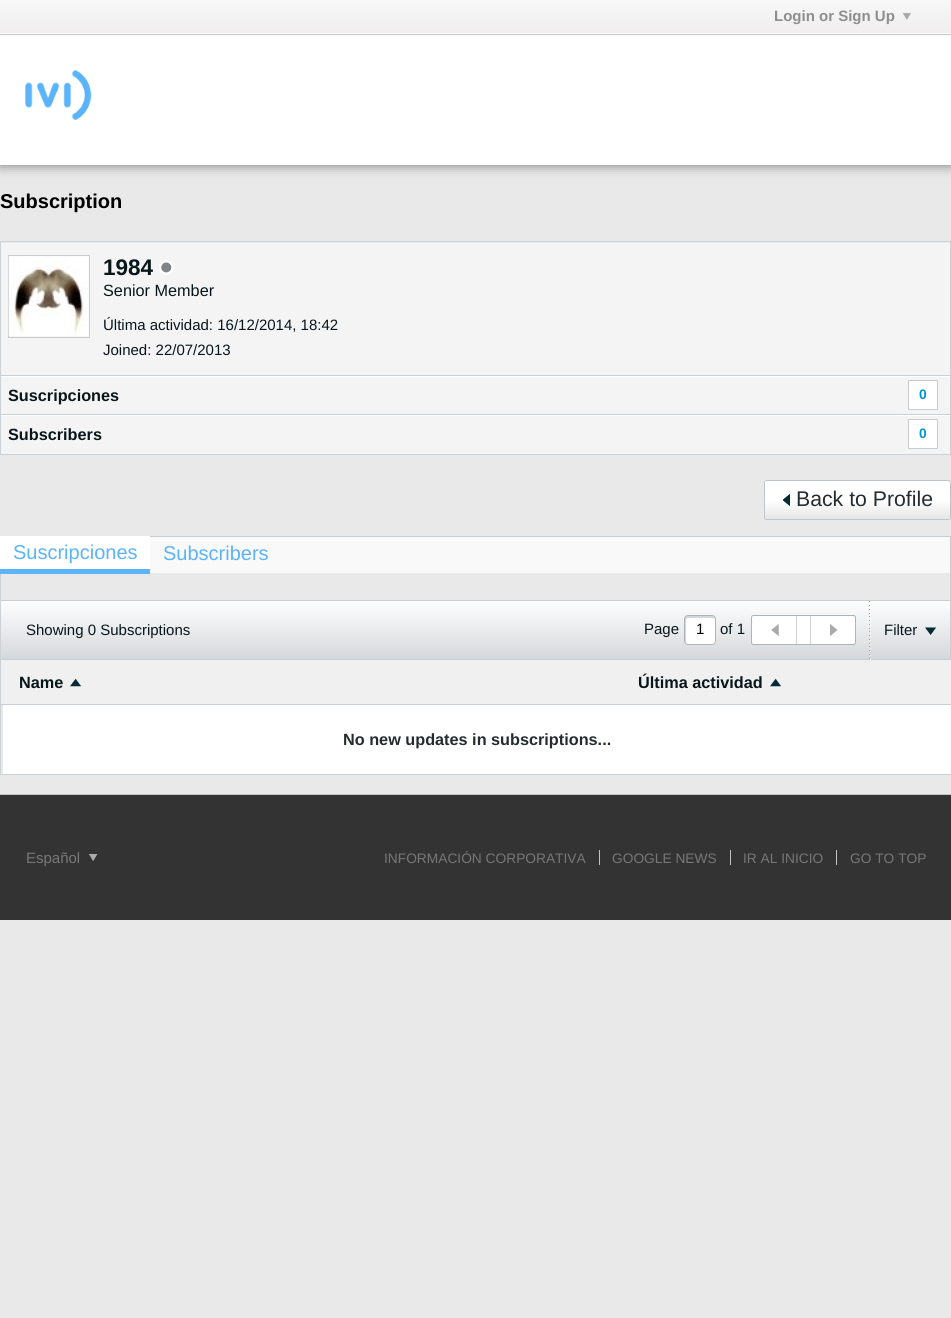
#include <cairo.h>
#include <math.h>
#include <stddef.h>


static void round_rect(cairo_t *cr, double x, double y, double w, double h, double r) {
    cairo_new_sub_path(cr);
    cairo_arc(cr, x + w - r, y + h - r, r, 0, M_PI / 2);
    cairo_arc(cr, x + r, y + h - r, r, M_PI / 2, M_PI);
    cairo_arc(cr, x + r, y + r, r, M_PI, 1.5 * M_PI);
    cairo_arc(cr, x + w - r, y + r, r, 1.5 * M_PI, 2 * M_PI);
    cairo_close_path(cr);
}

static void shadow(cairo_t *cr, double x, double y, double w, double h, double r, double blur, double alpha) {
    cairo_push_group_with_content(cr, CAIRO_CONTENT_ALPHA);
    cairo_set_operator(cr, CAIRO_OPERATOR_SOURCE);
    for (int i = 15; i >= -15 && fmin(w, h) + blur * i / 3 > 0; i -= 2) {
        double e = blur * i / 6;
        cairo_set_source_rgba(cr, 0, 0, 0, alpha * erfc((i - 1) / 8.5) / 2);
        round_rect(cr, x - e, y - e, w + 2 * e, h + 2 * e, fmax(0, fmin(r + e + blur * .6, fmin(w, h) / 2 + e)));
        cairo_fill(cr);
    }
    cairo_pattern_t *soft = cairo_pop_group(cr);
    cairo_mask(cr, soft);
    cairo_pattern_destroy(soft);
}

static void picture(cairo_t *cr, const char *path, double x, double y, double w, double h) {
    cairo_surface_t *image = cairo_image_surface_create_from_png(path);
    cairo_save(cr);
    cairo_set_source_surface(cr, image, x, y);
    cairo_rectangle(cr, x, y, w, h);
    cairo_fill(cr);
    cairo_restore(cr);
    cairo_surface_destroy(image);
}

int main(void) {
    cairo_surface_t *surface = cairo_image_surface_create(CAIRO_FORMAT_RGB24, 951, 1318);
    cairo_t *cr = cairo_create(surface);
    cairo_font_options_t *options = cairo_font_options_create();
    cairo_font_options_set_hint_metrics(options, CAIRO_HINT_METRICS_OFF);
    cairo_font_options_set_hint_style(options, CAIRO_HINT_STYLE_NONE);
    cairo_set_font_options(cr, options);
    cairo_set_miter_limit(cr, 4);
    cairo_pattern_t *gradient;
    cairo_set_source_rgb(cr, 0.914, 0.914, 0.914);
    cairo_paint(cr);
    cairo_set_source_rgb(cr, 0.455, 0.455, 0.455);
    shadow(cr, 0, 35, 951, 130, 0, 6, 1);
    gradient = cairo_pattern_create_linear(476, 0, 476, 35);
    cairo_pattern_add_color_stop_rgba(gradient, 0, 0.973, 0.973, 0.973, 1);
    cairo_pattern_add_color_stop_rgba(gradient, 1, 0.937, 0.929, 0.933, 1);
    cairo_set_source(cr, gradient);
    cairo_pattern_destroy(gradient);
    cairo_rectangle(cr, 0, 0, 951, 33);
    cairo_fill(cr);
    cairo_select_font_face(cr, "Liberation Sans", CAIRO_FONT_SLANT_NORMAL, CAIRO_FONT_WEIGHT_BOLD);
    cairo_set_font_size(cr, 15);
    cairo_set_source_rgb(cr, 0.557, 0.557, 0.557);
    cairo_move_to(cr, 774, 21);
    cairo_show_text(cr, "Login or Sign Up");
    picture(cr, "img1.png", 903, 13, 8, 7);
    cairo_set_source_rgb(cr, 0.98, 0.98, 0.98);
    cairo_rectangle(cr, 0, 33, 951, 3);
    cairo_fill(cr);
    cairo_set_source_rgb(cr, 0.78, 0.784, 0.788);
    cairo_rectangle(cr, 0, 34, 951, 1);
    cairo_fill(cr);
    cairo_set_source_rgb(cr, 1, 1, 1);
    cairo_rectangle(cr, 0, 36, 951, 129);
    cairo_fill(cr);
    picture(cr, "img2.png", 25, 70, 67, 50);
    cairo_set_font_size(cr, 20);
    cairo_set_source_rgb(cr, 0, 0, 0);
    cairo_move_to(cr, 0, 208);
    cairo_show_text(cr, "Subscription");
    cairo_rectangle(cr, 0.5, 241.5, 950, 213);
    cairo_set_source_rgb(cr, 0.8, 0.82, 0.835);
    cairo_set_line_width(cr, 1);
    cairo_stroke(cr);
    cairo_set_source_rgb(cr, 0.957, 0.957, 0.957);
    cairo_rectangle(cr, 1, 243, 949, 211);
    cairo_fill(cr);
    cairo_rectangle(cr, 8.5, 255.5, 81, 82);
    cairo_set_source_rgb(cr, 0.784, 0.8, 0.808);
    cairo_stroke(cr);
    picture(cr, "img3.png", 8, 256, 81, 80);
    cairo_set_font_size(cr, 22.5);
    cairo_set_source_rgb(cr, 0.035, 0.086, 0.106);
    cairo_move_to(cr, 103, 275);
    cairo_show_text(cr, "1984");
    picture(cr, "img4.png", 159, 260, 15, 15);
    cairo_select_font_face(cr, "Liberation Sans", CAIRO_FONT_SLANT_NORMAL, CAIRO_FONT_WEIGHT_NORMAL);
    cairo_set_font_size(cr, 16.25);
    cairo_move_to(cr, 103, 296);
    cairo_show_text(cr, "Senior Member");
    cairo_set_font_size(cr, 15);
    cairo_move_to(cr, 103, 330);
    cairo_show_text(cr, "Última actividad: 16/12/2014, 18:42");
    cairo_move_to(cr, 103, 355);
    cairo_show_text(cr, "Joined: 22/07/2013");
    cairo_set_source_rgb(cr, 0.792, 0.812, 0.827);
    cairo_rectangle(cr, 1, 375, 949, 1);
    cairo_fill(cr);
    cairo_set_source_rgb(cr, 1, 1, 1);
    cairo_rectangle(cr, 1, 376, 949, 1);
    cairo_fill(cr);
    cairo_set_source_rgb(cr, 0.792, 0.812, 0.827);
    cairo_rectangle(cr, 1, 414, 949, 1);
    cairo_fill(cr);
    cairo_select_font_face(cr, "Liberation Sans", CAIRO_FONT_SLANT_NORMAL, CAIRO_FONT_WEIGHT_BOLD);
    cairo_set_font_size(cr, 16.25);
    cairo_set_source_rgb(cr, 0.035, 0.086, 0.106);
    cairo_move_to(cr, 8, 401);
    cairo_show_text(cr, "Suscripciones");
    cairo_set_source_rgb(cr, 1, 1, 1);
    round_rect(cr, 908.5, 380.5, 29, 29, 0.5);
    cairo_fill_preserve(cr);
    cairo_set_source_rgb(cr, 0.784, 0.8, 0.808);
    cairo_stroke(cr);
    cairo_set_font_size(cr, 13.75);
    cairo_set_source_rgb(cr, 0, 0.576, 0.824);
    cairo_move_to(cr, 919, 399);
    cairo_show_text(cr, "0");
    cairo_set_source_rgb(cr, 1, 1, 1);
    cairo_rectangle(cr, 1, 415, 949, 1);
    cairo_fill(cr);
    cairo_set_font_size(cr, 16.25);
    cairo_set_source_rgb(cr, 0.035, 0.086, 0.106);
    cairo_move_to(cr, 8, 440);
    cairo_show_text(cr, "Subscribers");
    cairo_set_source_rgb(cr, 1, 1, 1);
    round_rect(cr, 908.5, 419.5, 29, 29, 0.5);
    cairo_fill_preserve(cr);
    cairo_set_source_rgb(cr, 0.784, 0.8, 0.808);
    cairo_stroke(cr);
    cairo_set_font_size(cr, 13.75);
    cairo_set_source_rgb(cr, 0, 0.576, 0.824);
    cairo_move_to(cr, 919, 438);
    cairo_show_text(cr, "0");
    cairo_set_source_rgb(cr, 1, 1, 1);
    round_rect(cr, 764, 480, 187, 40, 2.5);
    cairo_fill(cr);
    gradient = cairo_pattern_create_linear(858, 519, 858, 481);
    cairo_pattern_add_color_stop_rgba(gradient, 0, 0, 0, 0, 0.1);
    cairo_pattern_add_color_stop_rgba(gradient, 0.5, 0, 0, 0, 0);
    cairo_pattern_add_color_stop_rgba(gradient, 0.5, 1, 1, 1, 0);
    cairo_pattern_add_color_stop_rgba(gradient, 1, 1, 1, 1, 0.7);
    cairo_set_source(cr, gradient);
    cairo_pattern_destroy(gradient);
    cairo_rectangle(cr, 764, 481, 187, 38);
    cairo_fill(cr);
    round_rect(cr, 764.5, 480.5, 186, 39, 2);
    cairo_set_source_rgb(cr, 0.749, 0.773, 0.788);
    cairo_stroke(cr);
    picture(cr, "img5.png", 783, 494, 7, 12);
    cairo_select_font_face(cr, "Liberation Sans", CAIRO_FONT_SLANT_NORMAL, CAIRO_FONT_WEIGHT_NORMAL);
    cairo_set_font_size(cr, 21.25);
    cairo_set_source_rgb(cr, 0.145, 0.173, 0.184);
    cairo_move_to(cr, 796, 506);
    cairo_show_text(cr, "Back to Profile");
    cairo_rectangle(cr, 0.5, 536.5, 950, 238);
    cairo_set_source_rgb(cr, 0.8, 0.82, 0.835);
    cairo_stroke(cr);
    cairo_set_source_rgb(cr, 0.973, 0.973, 0.973);
    cairo_rectangle(cr, 150, 537, 800, 36);
    cairo_fill(cr);
    cairo_set_source_rgb(cr, 0.788, 0.808, 0.824);
    cairo_rectangle(cr, 150, 536, 801, 1);
    cairo_fill(cr);
    cairo_rectangle(cr, 950, 536, 1, 37);
    cairo_fill(cr);
    cairo_set_source_rgb(cr, 0.357, 0.702, 0.976);
    cairo_rectangle(cr, 0, 569, 150, 5);
    cairo_fill(cr);
    cairo_set_source_rgb(cr, 1, 1, 1);
    cairo_rectangle(cr, 0, 536, 150, 33);
    cairo_fill(cr);
    cairo_set_font_size(cr, 20);
    cairo_set_source_rgb(cr, 0.357, 0.702, 0.976);
    cairo_move_to(cr, 13, 559);
    cairo_show_text(cr, "Suscripciones");
    cairo_move_to(cr, 163, 560);
    cairo_show_text(cr, "Subscribers");
    gradient = cairo_pattern_create_linear(476, 601, 476, 659);
    cairo_pattern_add_color_stop_rgba(gradient, 0, 0.996, 0.996, 1, 1);
    cairo_pattern_add_color_stop_rgba(gradient, 1, 0.835, 0.847, 0.855, 1);
    cairo_set_source(cr, gradient);
    cairo_pattern_destroy(gradient);
    cairo_rectangle(cr, 1, 601, 949, 58);
    cairo_fill(cr);
    cairo_set_source_rgb(cr, 0.788, 0.808, 0.824);
    cairo_rectangle(cr, 1, 600, 949, 1);
    cairo_fill(cr);
    cairo_set_font_size(cr, 15);
    cairo_set_source_rgb(cr, 0.035, 0.086, 0.106);
    cairo_move_to(cr, 26, 635);
    cairo_show_text(cr, "Showing 0 Subscriptions");
    cairo_move_to(cr, 644, 634);
    cairo_show_text(cr, "Page");
    cairo_set_source_rgb(cr, 1, 1, 1);
    round_rect(cr, 684, 615, 32, 30, 4);
    cairo_fill(cr);
    cairo_set_source_rgb(cr, 0.835, 0.835, 0.835);
    cairo_new_path(cr);
    cairo_move_to(cr, 689, 618);
    cairo_curve_to(cr, 692.5, 618, 713.5, 617.5, 715, 618.5);
    cairo_curve_to(cr, 715, 617, 714, 616, 712.5, 616);
    cairo_line_to(cr, 687.5, 616);
    cairo_curve_to(cr, 686, 616, 685, 617, 685, 618.5);
    cairo_line_to(cr, 685, 641.5);
    cairo_curve_to(cr, 685, 642.5, 685.5, 643.5, 686.5, 643.5);
    cairo_line_to(cr, 686, 642);
    cairo_line_to(cr, 686, 620);
    cairo_curve_to(cr, 686, 619, 687, 618, 689, 618);
    cairo_close_path(cr);
    cairo_fill(cr);
    round_rect(cr, 684.5, 615.5, 31, 29, 3.5);
    cairo_set_source_rgb(cr, 0.682, 0.702, 0.714);
    cairo_stroke(cr);
    cairo_set_source_rgb(cr, 0, 0, 0);
    cairo_move_to(cr, 696, 634);
    cairo_show_text(cr, "1");
    cairo_set_source_rgb(cr, 0.035, 0.086, 0.106);
    cairo_move_to(cr, 720, 634);
    cairo_show_text(cr, "of 1");
    cairo_set_source_rgb(cr, 1, 1, 1);
    round_rect(cr, 751.5, 615.5, 104, 29, 2);
    cairo_fill_preserve(cr);
    cairo_set_source_rgb(cr, 0.682, 0.702, 0.714);
    cairo_stroke(cr);
    cairo_set_source_rgb(cr, 0.804, 0.82, 0.831);
    cairo_rectangle(cr, 796, 616, 1, 28);
    cairo_fill(cr);
    picture(cr, "img6.png", 771, 624, 8, 12);
    cairo_rectangle(cr, 810, 616, 1, 28);
    cairo_fill(cr);
    picture(cr, "img7.png", 830, 624, 8, 12);
    picture(cr, "img8.png", 869, 601, 1, 58);
    cairo_set_source_rgb(cr, 0.788, 0.808, 0.824);
    cairo_rectangle(cr, 1, 659, 950, 1);
    cairo_fill(cr);
    picture(cr, "img9.png", 870, 606, 1, 54);
    cairo_set_source_rgb(cr, 0.035, 0.086, 0.106);
    cairo_move_to(cr, 884, 635);
    cairo_show_text(cr, "Filter");
    picture(cr, "img10.png", 925, 627, 11, 8);
    cairo_set_source_rgb(cr, 0.941, 0.941, 0.941);
    cairo_rectangle(cr, 1, 660, 950, 44);
    cairo_fill(cr);
    cairo_set_source_rgb(cr, 0.788, 0.808, 0.824);
    cairo_rectangle(cr, 1, 704, 950, 1);
    cairo_fill(cr);
    cairo_select_font_face(cr, "Liberation Sans", CAIRO_FONT_SLANT_NORMAL, CAIRO_FONT_WEIGHT_BOLD);
    cairo_set_font_size(cr, 16.25);
    cairo_set_source_rgb(cr, 0.035, 0.086, 0.106);
    cairo_move_to(cr, 19, 688);
    cairo_show_text(cr, "Name");
    picture(cr, "img11.png", 70, 678, 11, 9);
    cairo_move_to(cr, 638, 688);
    cairo_show_text(cr, "Última actividad");
    picture(cr, "img11.png", 770, 678, 11, 9);
    cairo_set_source_rgb(cr, 1, 1, 1);
    cairo_rectangle(cr, 3, 705, 948, 69);
    cairo_fill(cr);
    cairo_set_source_rgb(cr, 0.145, 0.173, 0.184);
    cairo_move_to(cr, 343, 745);
    cairo_show_text(cr, "No new updates in subscriptions...");
    cairo_set_source_rgb(cr, 0.2, 0.2, 0.2);
    cairo_rectangle(cr, 0, 795, 951, 125);
    cairo_fill(cr);
    cairo_set_source_rgb(cr, 0.761, 0.761, 0.761);
    cairo_rectangle(cr, 0, 794, 951, 1);
    cairo_fill(cr);
    cairo_select_font_face(cr, "Liberation Sans", CAIRO_FONT_SLANT_NORMAL, CAIRO_FONT_WEIGHT_NORMAL);
    cairo_set_font_size(cr, 15);
    cairo_set_source_rgb(cr, 0.467, 0.467, 0.467);
    cairo_move_to(cr, 26, 863);
    cairo_show_text(cr, "Español");
    picture(cr, "img12.png", 89, 854, 9, 7);
    cairo_set_font_size(cr, 13.75);
    cairo_move_to(cr, 384, 863);
    cairo_show_text(cr, "INFORMACIÓN CORPORATIVA");
    cairo_move_to(cr, 612, 863);
    cairo_show_text(cr, "GOOGLE NEWS");
    cairo_set_source_rgb(cr, 0.761, 0.761, 0.761);
    cairo_rectangle(cr, 599, 850, 1, 15);
    cairo_fill(cr);
    cairo_set_source_rgb(cr, 0.467, 0.467, 0.467);
    cairo_move_to(cr, 743, 863);
    cairo_show_text(cr, "IR AL INICIO");
    cairo_set_source_rgb(cr, 0.761, 0.761, 0.761);
    cairo_rectangle(cr, 730, 850, 1, 15);
    cairo_fill(cr);
    cairo_set_source_rgb(cr, 0.467, 0.467, 0.467);
    cairo_move_to(cr, 850, 863);
    cairo_show_text(cr, "GO TO TOP");
    cairo_set_source_rgb(cr, 0.761, 0.761, 0.761);
    cairo_rectangle(cr, 836, 850, 1, 15);
    cairo_fill(cr);
    cairo_surface_write_to_png(surface, "page.png");
    cairo_font_options_destroy(options);
    cairo_destroy(cr);
    cairo_surface_destroy(surface);
    return 0;
}
